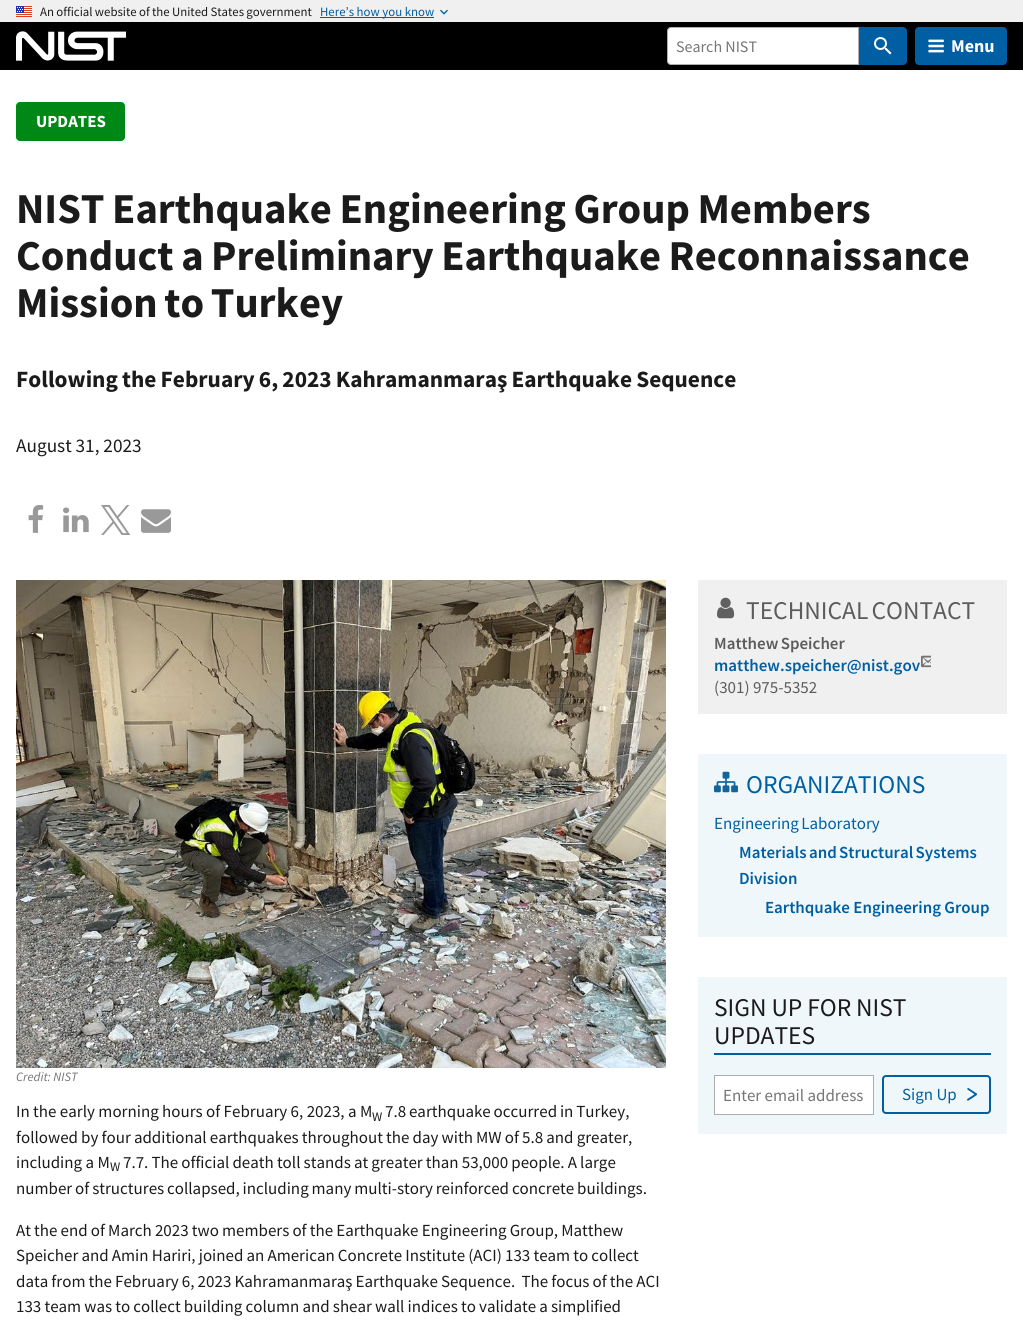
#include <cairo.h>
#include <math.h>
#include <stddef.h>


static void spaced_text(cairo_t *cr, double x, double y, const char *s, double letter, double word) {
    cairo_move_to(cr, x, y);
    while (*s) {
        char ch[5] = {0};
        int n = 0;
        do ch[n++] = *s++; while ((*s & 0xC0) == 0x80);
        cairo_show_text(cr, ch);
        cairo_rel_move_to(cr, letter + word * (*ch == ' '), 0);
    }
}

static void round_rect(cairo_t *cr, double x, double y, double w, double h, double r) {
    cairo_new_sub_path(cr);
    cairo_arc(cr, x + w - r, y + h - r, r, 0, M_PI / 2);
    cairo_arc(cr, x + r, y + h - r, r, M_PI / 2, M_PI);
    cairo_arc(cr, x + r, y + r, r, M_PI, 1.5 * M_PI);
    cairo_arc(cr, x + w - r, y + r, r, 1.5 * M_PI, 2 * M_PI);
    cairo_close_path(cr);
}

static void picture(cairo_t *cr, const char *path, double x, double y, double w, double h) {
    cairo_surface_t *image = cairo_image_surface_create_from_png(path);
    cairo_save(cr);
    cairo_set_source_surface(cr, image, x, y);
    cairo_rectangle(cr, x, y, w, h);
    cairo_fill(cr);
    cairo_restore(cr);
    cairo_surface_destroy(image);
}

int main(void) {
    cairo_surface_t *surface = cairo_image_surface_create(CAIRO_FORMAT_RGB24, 1023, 1327);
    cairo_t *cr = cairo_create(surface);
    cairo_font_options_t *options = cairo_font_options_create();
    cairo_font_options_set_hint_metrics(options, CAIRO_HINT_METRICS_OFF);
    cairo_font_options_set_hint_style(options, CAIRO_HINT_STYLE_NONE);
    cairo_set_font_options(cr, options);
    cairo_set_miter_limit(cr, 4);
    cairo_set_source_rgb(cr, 1, 1, 1);
    cairo_paint(cr);
    cairo_set_source_rgb(cr, 0.941, 0.941, 0.941);
    cairo_rectangle(cr, 0, 0, 1023, 22);
    cairo_fill(cr);
    picture(cr, "img1.png", 16, 6, 16, 11);
    cairo_select_font_face(cr, "Source Sans Pro", CAIRO_FONT_SLANT_NORMAL, CAIRO_FONT_WEIGHT_NORMAL);
    cairo_set_font_size(cr, 12.8);
    cairo_set_source_rgb(cr, 0.106, 0.106, 0.106);
    spaced_text(cr, 40, 16, "An official website of the United States government", 0, -0.25);
    cairo_set_source_rgb(cr, 0, 0.369, 0.635);
    cairo_rectangle(cr, 320, 17, 114, 1);
    cairo_fill(cr);
    cairo_move_to(cr, 320, 16);
    cairo_show_text(cr, "Here’s how you know");
    picture(cr, "img2.png", 440, 9, 8, 6);
    cairo_set_source_rgb(cr, 0, 0, 0);
    cairo_rectangle(cr, 0, 22, 1023, 48);
    cairo_fill(cr);
    picture(cr, "img3.png", 16, 31, 110, 30);
    cairo_set_source_rgb(cr, 1, 1, 1);
    cairo_new_path(cr);
    cairo_move_to(cr, 671, 27.5);
    cairo_line_to(cr, 858.5, 27.5);
    cairo_line_to(cr, 858.5, 64.5);
    cairo_line_to(cr, 671, 64.5);
    cairo_curve_to(cr, 669, 64.5, 667.5, 63, 667.5, 61);
    cairo_line_to(cr, 667.5, 31);
    cairo_curve_to(cr, 667.5, 29, 669, 27.5, 671, 27.5);
    cairo_close_path(cr);
    cairo_fill_preserve(cr);
    cairo_set_source_rgb(cr, 0.678, 0.678, 0.678);
    cairo_set_line_width(cr, 1);
    cairo_stroke(cr);
    cairo_set_font_size(cr, 16);
    cairo_set_source_rgb(cr, 0.459, 0.459, 0.459);
    cairo_move_to(cr, 676, 52);
    cairo_show_text(cr, "Search NIST");
    cairo_set_source_rgb(cr, 0, 0.369, 0.635);
    cairo_new_path(cr);
    cairo_move_to(cr, 859, 27);
    cairo_line_to(cr, 903, 27);
    cairo_curve_to(cr, 905, 27, 907, 29, 907, 31);
    cairo_line_to(cr, 907, 61);
    cairo_curve_to(cr, 907, 63, 905, 65, 903, 65);
    cairo_line_to(cr, 859, 65);
    cairo_close_path(cr);
    cairo_fill(cr);
    picture(cr, "img4.png", 874, 37, 18, 18);
    round_rect(cr, 915, 27, 92, 38, 4);
    cairo_fill(cr);
    picture(cr, "img5.png", 928, 39, 16, 14);
    cairo_select_font_face(cr, "Source Sans Pro", CAIRO_FONT_SLANT_NORMAL, CAIRO_FONT_WEIGHT_BOLD);
    cairo_set_font_size(cr, 18);
    cairo_set_source_rgb(cr, 1, 1, 1);
    cairo_move_to(cr, 951, 52);
    cairo_show_text(cr, "Menu");
    cairo_set_source_rgb(cr, 0, 0.533, 0.09);
    round_rect(cr, 16, 102, 109, 39, 4);
    cairo_fill(cr);
    cairo_set_font_size(cr, 16.95);
    cairo_set_source_rgb(cr, 1, 1, 1);
    cairo_move_to(cr, 36, 127);
    cairo_show_text(cr, "UPDATES");
    cairo_set_font_size(cr, 42.6);
    cairo_set_source_rgb(cr, 0.106, 0.106, 0.106);
    spaced_text(cr, 16, 223, "NIST Earthquake Engineering Group Members", 0, -1);
    spaced_text(cr, 16, 270, "Conduct a Preliminary Earthquake Reconnaissance", 0, -1);
    spaced_text(cr, 16, 317, "Mission to Turkey", 0, -2);
    cairo_set_font_size(cr, 23.35);
    spaced_text(cr, 16, 387, "Following the February 6, 2023 Kahramanmaraş Earthquake Sequence", 0, -0.5);
    cairo_select_font_face(cr, "Source Sans Pro", CAIRO_FONT_SLANT_NORMAL, CAIRO_FONT_WEIGHT_NORMAL);
    cairo_set_font_size(cr, 19.25);
    cairo_move_to(cr, 16, 452);
    cairo_show_text(cr, "August 31, 2023");
    picture(cr, "img6.png", 28, 505, 16, 28);
    picture(cr, "img7.png", 63, 507, 26, 26);
    picture(cr, "img8.png", 101, 505, 30, 30);
    picture(cr, "img9.png", 141, 509, 30, 24);
    cairo_set_source_rgb(cr, 0.941, 0.941, 0.941);
    cairo_rectangle(cr, 698, 580, 309, 134);
    cairo_fill(cr);
    picture(cr, "img10.png", 717, 597, 18, 22);
    cairo_set_font_size(cr, 25.5);
    cairo_set_source_rgb(cr, 0.361, 0.361, 0.361);
    spaced_text(cr, 746, 619, "TECHNICAL CONTACT", 0, -2);
    cairo_select_font_face(cr, "Source Sans Pro SemiBold", CAIRO_FONT_SLANT_NORMAL, CAIRO_FONT_WEIGHT_NORMAL);
    cairo_set_font_size(cr, 16.95);
    spaced_text(cr, 714, 649, "Matthew Speicher", 0, -1);
    cairo_set_source_rgb(cr, 0, 0.369, 0.635);
    cairo_move_to(cr, 714, 671);
    cairo_show_text(cr, "matthew.speicher@nist.gov");
    picture(cr, "img11.png", 921, 655, 10, 13);
    cairo_select_font_face(cr, "Source Sans Pro", CAIRO_FONT_SLANT_NORMAL, CAIRO_FONT_WEIGHT_NORMAL);
    cairo_set_source_rgb(cr, 0.361, 0.361, 0.361);
    cairo_move_to(cr, 714, 693);
    cairo_show_text(cr, "(301) 975-5352");
    cairo_set_source_rgb(cr, 0.937, 0.965, 0.984);
    cairo_rectangle(cr, 698, 754, 309, 183);
    cairo_fill(cr);
    picture(cr, "img12.png", 714, 771, 24, 22);
    cairo_set_font_size(cr, 25.5);
    cairo_set_source_rgb(cr, 0, 0.369, 0.635);
    cairo_move_to(cr, 746, 793);
    cairo_show_text(cr, "ORGANIZATIONS");
    cairo_set_font_size(cr, 16.95);
    spaced_text(cr, 714, 829, "Engineering Laboratory", 0, -1);
    cairo_select_font_face(cr, "Source Sans Pro SemiBold", CAIRO_FONT_SLANT_NORMAL, CAIRO_FONT_WEIGHT_NORMAL);
    spaced_text(cr, 739, 858, "Materials and Structural Systems", 0, -1);
    cairo_move_to(cr, 739, 884);
    cairo_show_text(cr, "Division");
    cairo_move_to(cr, 765, 913);
    cairo_show_text(cr, "Earthquake Engineering Group");
    cairo_set_source_rgb(cr, 0.937, 0.965, 0.984);
    cairo_rectangle(cr, 698, 977, 309, 157);
    cairo_fill(cr);
    cairo_set_source_rgb(cr, 0, 0.369, 0.635);
    cairo_rectangle(cr, 714, 1053, 277, 2);
    cairo_fill(cr);
    cairo_select_font_face(cr, "Source Sans Pro", CAIRO_FONT_SLANT_NORMAL, CAIRO_FONT_WEIGHT_NORMAL);
    cairo_set_font_size(cr, 25.5);
    cairo_set_source_rgb(cr, 0.106, 0.106, 0.106);
    spaced_text(cr, 714, 1016, "SIGN UP FOR NIST", 0, -0.25);
    cairo_move_to(cr, 714, 1044);
    cairo_show_text(cr, "UPDATES");
    cairo_set_source_rgb(cr, 1, 1, 1);
    cairo_rectangle(cr, 714.5, 1075.5, 159, 39);
    cairo_fill_preserve(cr);
    cairo_set_source_rgb(cr, 0.678, 0.678, 0.678);
    cairo_stroke(cr);
    cairo_set_font_size(cr, 16.95);
    cairo_set_source_rgb(cr, 0.459, 0.459, 0.459);
    cairo_move_to(cr, 723, 1101);
    cairo_show_text(cr, "Enter email address");
    picture(cr, "img13.png", 967, 1088, 10, 13);
    round_rect(cr, 883, 1076, 107, 37, 3);
    cairo_set_source_rgb(cr, 0, 0.369, 0.635);
    cairo_set_line_width(cr, 2);
    cairo_stroke(cr);
    cairo_move_to(cr, 902, 1100);
    cairo_show_text(cr, "Sign Up");
    picture(cr, "img14.png", 16, 580, 650, 488);
    cairo_select_font_face(cr, "Source Sans Pro", CAIRO_FONT_SLANT_ITALIC, CAIRO_FONT_WEIGHT_NORMAL);
    cairo_set_font_size(cr, 12.8);
    cairo_set_source_rgb(cr, 0.459, 0.459, 0.459);
    cairo_move_to(cr, 16, 1081);
    cairo_show_text(cr, "Credit: NIST");
    cairo_select_font_face(cr, "Source Sans Pro", CAIRO_FONT_SLANT_NORMAL, CAIRO_FONT_WEIGHT_NORMAL);
    cairo_set_font_size(cr, 16.95);
    cairo_set_source_rgb(cr, 0.106, 0.106, 0.106);
    cairo_move_to(cr, 16, 1117);
    cairo_show_text(cr, "In the early morning hours of February 6, 2023, a M");
    cairo_set_font_size(cr, 13);
    cairo_move_to(cr, 372, 1121);
    cairo_show_text(cr, "W");
    cairo_set_font_size(cr, 16.95);
    spaced_text(cr, 385, 1117, "7.8 earthquake occurred in Turkey,", 0, -0.5);
    spaced_text(cr, 16, 1143, "followed by four additional earthquakes throughout the day with MW of 5.8 and greater,", 0, -0.25);
    cairo_move_to(cr, 16, 1168);
    cairo_show_text(cr, "including a M");
    cairo_set_font_size(cr, 13);
    cairo_move_to(cr, 110, 1171);
    cairo_show_text(cr, "W");
    cairo_set_font_size(cr, 16.95);
    spaced_text(cr, 123, 1168, "7.7. The official death toll stands at greater than 53,000 people. A large", 0, -0.25);
    spaced_text(cr, 16, 1194, "number of structures collapsed, including many multi-story reinforced concrete buildings.", 0, -0.5);
    spaced_text(cr, 16, 1236, "At the end of March 2023 two members of the Earthquake Engineering Group, Matthew", 0, -0.25);
    spaced_text(cr, 16, 1261, "Speicher and Amin Hariri, joined an American Concrete Institute (ACI) 133 team to collect", 0, -0.25);
    spaced_text(cr, 16, 1287, "data from the February 6, 2023 Kahramanmaraş Earthquake Sequence.  The focus of the ACI", 0, -0.25);
    spaced_text(cr, 16, 1312, "133 team was to collect building column and shear wall indices to validate a simplified", 0, -0.25);
    cairo_surface_write_to_png(surface, "page.png");
    cairo_font_options_destroy(options);
    cairo_destroy(cr);
    cairo_surface_destroy(surface);
    return 0;
}
